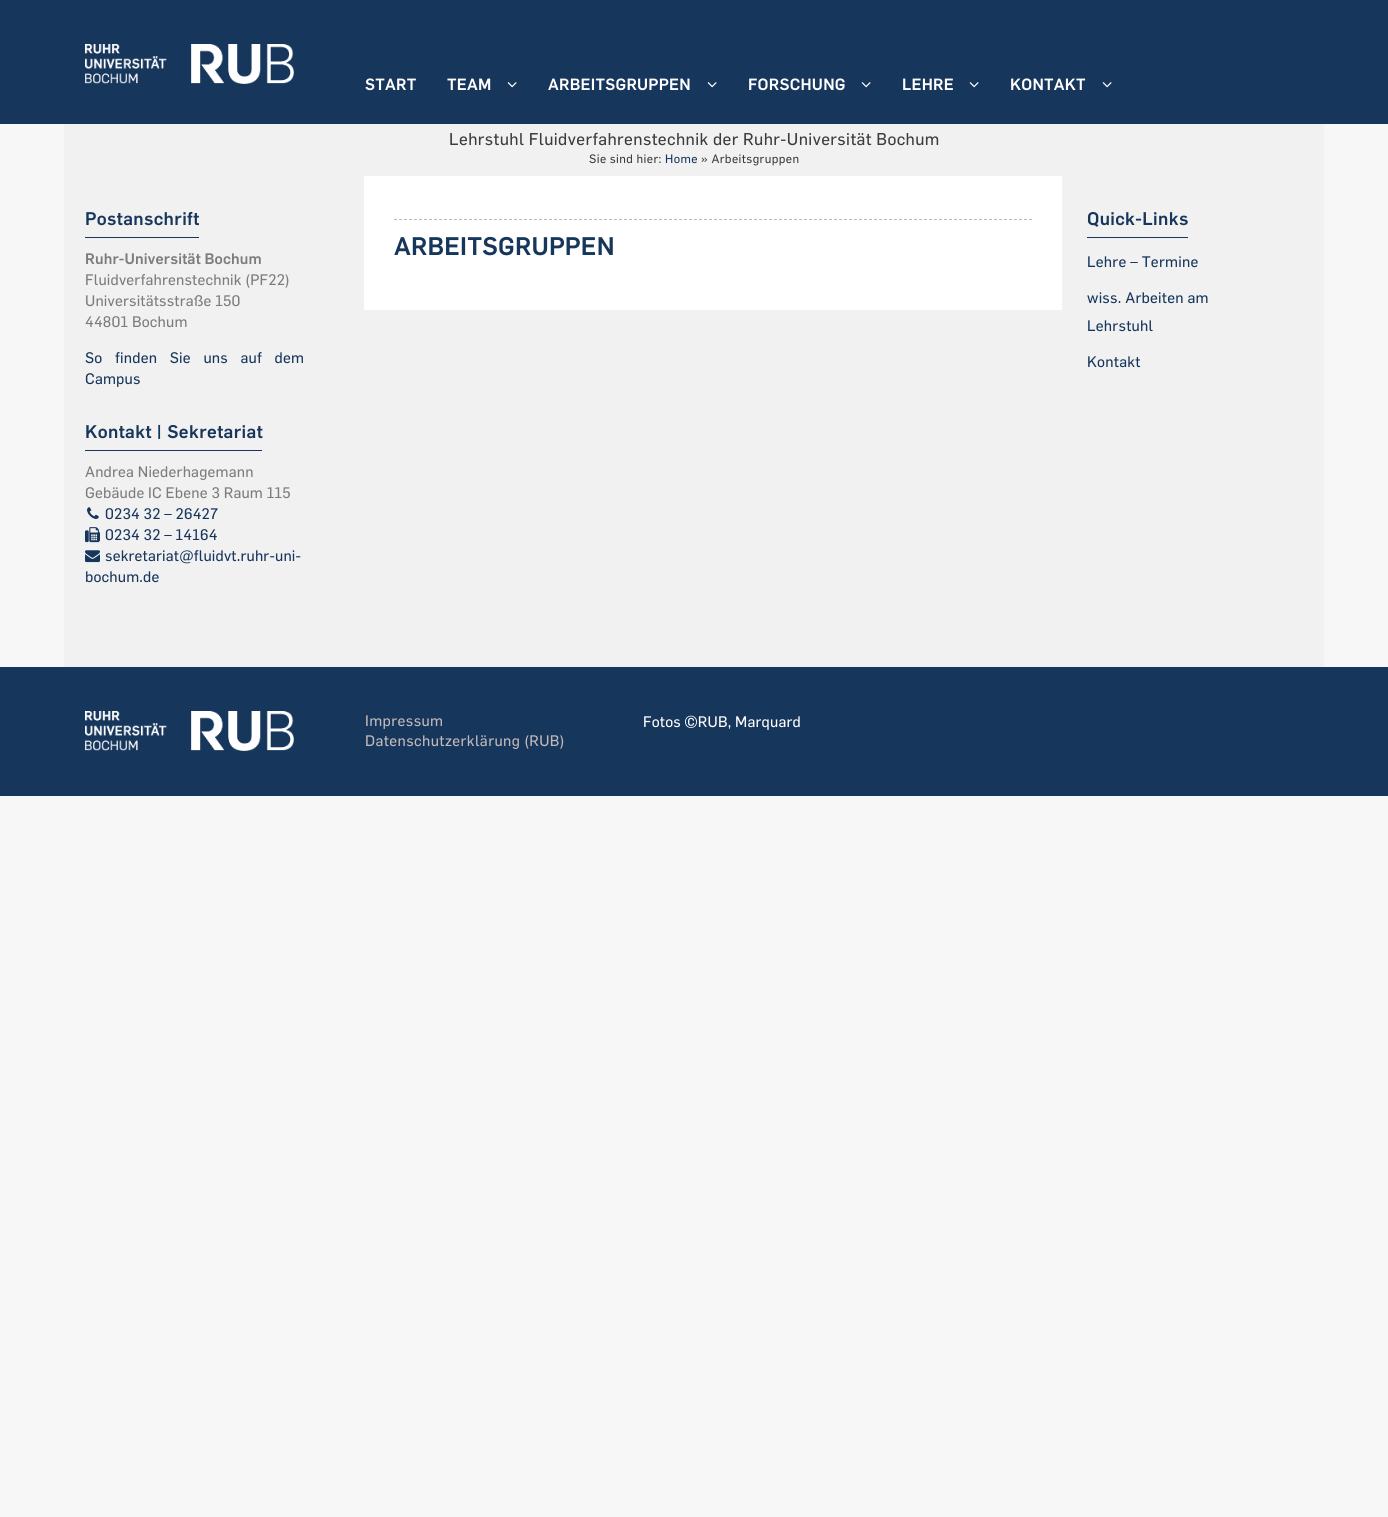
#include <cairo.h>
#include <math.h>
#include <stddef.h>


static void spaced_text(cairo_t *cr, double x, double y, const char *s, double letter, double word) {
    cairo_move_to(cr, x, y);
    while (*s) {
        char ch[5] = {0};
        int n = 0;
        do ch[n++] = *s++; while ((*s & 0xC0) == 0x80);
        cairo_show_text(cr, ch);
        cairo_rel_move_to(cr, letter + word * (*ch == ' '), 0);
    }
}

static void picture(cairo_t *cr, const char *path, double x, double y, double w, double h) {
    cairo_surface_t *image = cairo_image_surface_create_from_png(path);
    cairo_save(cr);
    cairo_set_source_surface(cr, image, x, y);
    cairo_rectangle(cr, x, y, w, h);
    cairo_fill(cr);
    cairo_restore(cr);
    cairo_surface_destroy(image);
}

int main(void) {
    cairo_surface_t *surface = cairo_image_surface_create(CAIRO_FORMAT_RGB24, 1388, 1517);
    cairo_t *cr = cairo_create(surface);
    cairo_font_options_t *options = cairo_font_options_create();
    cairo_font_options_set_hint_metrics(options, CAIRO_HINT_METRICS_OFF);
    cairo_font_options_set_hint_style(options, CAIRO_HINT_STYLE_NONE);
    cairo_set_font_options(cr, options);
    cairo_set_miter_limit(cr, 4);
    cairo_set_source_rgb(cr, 0.965, 0.965, 0.965);
    cairo_paint(cr);
    cairo_set_source_rgb(cr, 0.09, 0.212, 0.361);
    cairo_rectangle(cr, 0, 0, 1388, 124);
    cairo_fill(cr);
    picture(cr, "img1.png", 85, 44, 209, 40);
    cairo_select_font_face(cr, "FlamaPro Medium", CAIRO_FONT_SLANT_NORMAL, CAIRO_FONT_WEIGHT_NORMAL);
    cairo_set_font_size(cr, 16);
    cairo_set_source_rgb(cr, 1, 1, 1);
    spaced_text(cr, 365, 90, "START", 0.25, 0);
    spaced_text(cr, 447, 90, "TEAM", 0.25, 0);
    picture(cr, "img2.png", 507, 82, 10, 6);
    spaced_text(cr, 548, 90, "ARBEITSGRUPPEN", 0.25, 0);
    picture(cr, "img2.png", 707, 82, 10, 6);
    spaced_text(cr, 748, 90, "FORSCHUNG", 0.25, 0);
    picture(cr, "img2.png", 861, 82, 10, 6);
    spaced_text(cr, 902, 90, "LEHRE", 0.25, 0);
    picture(cr, "img2.png", 969, 82, 10, 6);
    spaced_text(cr, 1010, 90, "KONTAKT", 0.25, 0);
    picture(cr, "img2.png", 1102, 82, 10, 6);
    cairo_set_source_rgb(cr, 0.949, 0.945, 0.945);
    cairo_rectangle(cr, 64, 124, 1260, 28);
    cairo_fill(cr);
    cairo_select_font_face(cr, "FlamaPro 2 Medium", CAIRO_FONT_SLANT_NORMAL, CAIRO_FONT_WEIGHT_NORMAL);
    cairo_set_font_size(cr, 16.8);
    cairo_set_source_rgb(cr, 0.235, 0.235, 0.235);
    spaced_text(cr, 449, 145, "Lehrstuhl Fluidverfahrenstechnik der Ruhr-Universität Bochum", 0.42, 0);
    cairo_set_source_rgb(cr, 0.949, 0.945, 0.945);
    cairo_rectangle(cr, 64, 152, 1260, 515);
    cairo_fill(cr);
    cairo_set_font_size(cr, 12);
    cairo_set_source_rgb(cr, 0.235, 0.235, 0.235);
    spaced_text(cr, 589, 163, "Sie sind hier:", 0.42, 0);
    cairo_set_source_rgb(cr, 0.09, 0.212, 0.361);
    spaced_text(cr, 665, 163, "Home", 0.42, 0);
    cairo_set_source_rgb(cr, 0.235, 0.235, 0.235);
    spaced_text(cr, 701, 163, "» Arbeitsgruppen", 0.42, 0);
    cairo_set_source_rgb(cr, 0.09, 0.212, 0.361);
    cairo_rectangle(cr, 85, 237, 114, 1);
    cairo_fill(cr);
    cairo_select_font_face(cr, "FlamaPro Medium", CAIRO_FONT_SLANT_NORMAL, CAIRO_FONT_WEIGHT_NORMAL);
    cairo_set_font_size(cr, 18);
    spaced_text(cr, 85, 225, "Postanschrift", 0.4, 0);
    cairo_set_font_size(cr, 15);
    cairo_set_source_rgb(cr, 0.486, 0.486, 0.482);
    spaced_text(cr, 85, 264, "Ruhr-Universität Bochum", 0.2, 0);
    cairo_select_font_face(cr, "FlamaPro 2 Medium", CAIRO_FONT_SLANT_NORMAL, CAIRO_FONT_WEIGHT_NORMAL);
    spaced_text(cr, 85, 285, "Fluidverfahrenstechnik (PF22)", 0.2, 0);
    spaced_text(cr, 85, 306, "Universitätsstraße 150", 0.2, 0);
    spaced_text(cr, 85, 327, "44801 Bochum", 0.2, 0);
    cairo_set_source_rgb(cr, 0.09, 0.212, 0.361);
    spaced_text(cr, 85, 363, "So finden Sie uns auf dem", 0.2, 9);
    spaced_text(cr, 85, 384, "Campus", 0.2, 0);
    cairo_rectangle(cr, 85, 450, 177, 1);
    cairo_fill(cr);
    cairo_select_font_face(cr, "FlamaPro Medium", CAIRO_FONT_SLANT_NORMAL, CAIRO_FONT_WEIGHT_NORMAL);
    cairo_set_font_size(cr, 18);
    spaced_text(cr, 85, 438, "Kontakt | Sekretariat", 0.4, 0);
    cairo_select_font_face(cr, "FlamaPro 2 Medium", CAIRO_FONT_SLANT_NORMAL, CAIRO_FONT_WEIGHT_NORMAL);
    cairo_set_font_size(cr, 15);
    cairo_set_source_rgb(cr, 0.486, 0.486, 0.482);
    spaced_text(cr, 85, 477, "Andrea Niederhagemann", 0.2, 0);
    spaced_text(cr, 85, 498, "Gebäude IC Ebene 3 Raum 115", 0.2, 0);
    picture(cr, "img3.png", 87, 507, 12, 12);
    cairo_set_source_rgb(cr, 0.09, 0.212, 0.361);
    spaced_text(cr, 105, 519, "0234 32 – 26427", 0.2, 0);
    picture(cr, "img4.png", 85, 527, 15, 16);
    spaced_text(cr, 105, 540, "0234 32 – 14164", 0.2, 0);
    picture(cr, "img5.png", 85, 550, 15, 13);
    spaced_text(cr, 105, 561, "sekretariat@fluidvt.ruhr-uni-", 0.2, 0);
    spaced_text(cr, 85, 582, "bochum.de", 0.2, 0);
    cairo_set_source_rgb(cr, 1, 1, 1);
    cairo_rectangle(cr, 364, 176, 698, 134);
    cairo_fill(cr);
    cairo_new_path(cr);
    cairo_move_to(cr, 394, 219.5);
    cairo_line_to(cr, 1032, 219.5);
    cairo_set_source_rgb(cr, 0.694, 0.733, 0.784);
    cairo_set_line_width(cr, 1);
    cairo_set_dash(cr, (double[]){3, 2}, 2, 0);
    cairo_stroke(cr);
    cairo_select_font_face(cr, "FlamaPro Medium", CAIRO_FONT_SLANT_NORMAL, CAIRO_FONT_WEIGHT_NORMAL);
    cairo_set_font_size(cr, 25);
    cairo_set_source_rgb(cr, 0.09, 0.212, 0.361);
    spaced_text(cr, 394, 255, "ARBEITSGRUPPEN", 0.2, 0);
    cairo_rectangle(cr, 1087, 237, 101, 1);
    cairo_fill(cr);
    cairo_set_font_size(cr, 18);
    spaced_text(cr, 1087, 225, "Quick-Links", 0.4, 0);
    cairo_select_font_face(cr, "FlamaPro 2 Medium", CAIRO_FONT_SLANT_NORMAL, CAIRO_FONT_WEIGHT_NORMAL);
    cairo_set_font_size(cr, 15);
    spaced_text(cr, 1087, 267, "Lehre – Termine", 0.25, 0);
    spaced_text(cr, 1087, 303, "wiss. Arbeiten am", 0.25, 0);
    spaced_text(cr, 1087, 331, "Lehrstuhl", 0.25, 0);
    spaced_text(cr, 1087, 367, "Kontakt", 0.25, 0);
    cairo_rectangle(cr, 0, 667, 1388, 129);
    cairo_fill(cr);
    picture(cr, "img1.png", 85, 711, 209, 40);
    cairo_set_source_rgb(cr, 0.757, 0.729, 0.725);
    spaced_text(cr, 365, 726, "Impressum", 0.42, 0);
    spaced_text(cr, 365, 746, "Datenschutzerklärung (RUB)", 0.42, 0);
    cairo_set_source_rgb(cr, 1, 1, 1);
    spaced_text(cr, 643, 727, "Fotos ©RUB, Marquard", 0.2, 0);
    cairo_surface_write_to_png(surface, "page.png");
    cairo_font_options_destroy(options);
    cairo_destroy(cr);
    cairo_surface_destroy(surface);
    return 0;
}
